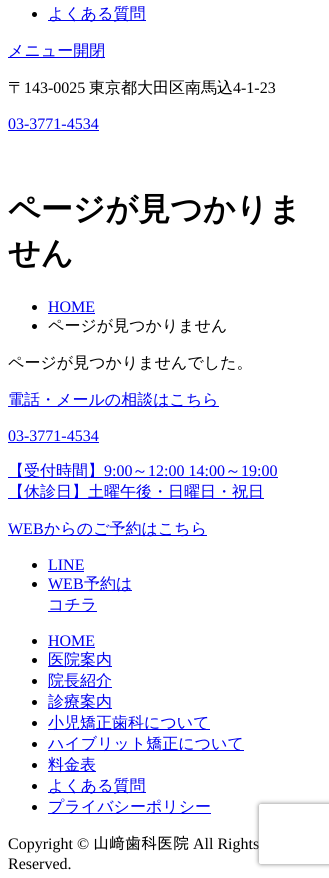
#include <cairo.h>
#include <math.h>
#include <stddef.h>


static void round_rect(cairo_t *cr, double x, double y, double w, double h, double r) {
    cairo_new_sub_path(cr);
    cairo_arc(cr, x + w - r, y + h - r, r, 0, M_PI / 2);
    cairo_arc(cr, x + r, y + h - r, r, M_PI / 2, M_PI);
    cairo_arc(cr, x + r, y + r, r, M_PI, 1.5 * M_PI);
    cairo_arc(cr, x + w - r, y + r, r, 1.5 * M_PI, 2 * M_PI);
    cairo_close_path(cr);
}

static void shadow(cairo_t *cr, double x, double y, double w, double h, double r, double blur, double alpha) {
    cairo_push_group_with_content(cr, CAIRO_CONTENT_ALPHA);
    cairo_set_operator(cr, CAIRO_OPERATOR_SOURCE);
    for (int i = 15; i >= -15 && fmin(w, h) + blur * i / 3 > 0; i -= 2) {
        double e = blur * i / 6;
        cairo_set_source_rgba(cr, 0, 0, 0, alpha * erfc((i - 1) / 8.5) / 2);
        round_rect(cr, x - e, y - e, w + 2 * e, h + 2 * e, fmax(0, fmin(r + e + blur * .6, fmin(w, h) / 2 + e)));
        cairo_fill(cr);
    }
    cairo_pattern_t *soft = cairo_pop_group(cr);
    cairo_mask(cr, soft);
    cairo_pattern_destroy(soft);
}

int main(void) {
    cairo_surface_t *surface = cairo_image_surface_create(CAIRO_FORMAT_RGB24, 329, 878);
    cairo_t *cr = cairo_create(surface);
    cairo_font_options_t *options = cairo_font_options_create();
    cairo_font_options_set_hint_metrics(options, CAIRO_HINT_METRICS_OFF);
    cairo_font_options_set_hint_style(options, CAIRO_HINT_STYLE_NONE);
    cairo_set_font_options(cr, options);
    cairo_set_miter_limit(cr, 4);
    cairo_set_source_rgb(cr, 1, 1, 1);
    cairo_paint(cr);
    cairo_set_source_rgb(cr, 0, 0, 0);
    cairo_arc(cr, 34.5, 14.5, 2.5, 0, 2 * M_PI);
    cairo_fill(cr);
    cairo_set_source_rgb(cr, 0, 0, 0.933);
    cairo_rectangle(cr, 48, 20, 98, 1);
    cairo_fill(cr);
    cairo_select_font_face(cr, "WenQuanYi Zen Hei Medium", CAIRO_FONT_SLANT_NORMAL, CAIRO_FONT_WEIGHT_NORMAL);
    cairo_set_font_size(cr, 16);
    cairo_move_to(cr, 48, 19);
    cairo_show_text(cr, "よくある質問");
    cairo_rectangle(cr, 8, 57, 97, 1);
    cairo_fill(cr);
    cairo_move_to(cr, 8, 56);
    cairo_show_text(cr, "メニュー開閉");
    cairo_set_source_rgb(cr, 0, 0, 0);
    cairo_move_to(cr, 8, 93);
    cairo_show_text(cr, "〒");
    cairo_select_font_face(cr, "Liberation Serif", CAIRO_FONT_SLANT_NORMAL, CAIRO_FONT_WEIGHT_NORMAL);
    cairo_move_to(cr, 24, 93);
    cairo_show_text(cr, "143-0025");
    cairo_select_font_face(cr, "WenQuanYi Zen Hei Medium", CAIRO_FONT_SLANT_NORMAL, CAIRO_FONT_WEIGHT_NORMAL);
    cairo_move_to(cr, 89, 93);
    cairo_show_text(cr, "東京都大田区南馬込");
    cairo_select_font_face(cr, "Liberation Serif", CAIRO_FONT_SLANT_NORMAL, CAIRO_FONT_WEIGHT_NORMAL);
    cairo_move_to(cr, 233, 93);
    cairo_show_text(cr, "4-1-23");
    cairo_set_source_rgb(cr, 0, 0, 0.933);
    cairo_move_to(cr, 8, 129);
    cairo_show_text(cr, "03-3771-4534");
    cairo_rectangle(cr, 8, 130, 91, 1);
    cairo_fill(cr);
    cairo_select_font_face(cr, "WenQuanYi Zen Hei", CAIRO_FONT_SLANT_NORMAL, CAIRO_FONT_WEIGHT_BOLD);
    cairo_set_font_size(cr, 32);
    cairo_set_source_rgb(cr, 0, 0, 0);
    cairo_move_to(cr, 8, 220);
    cairo_show_text(cr, "ページが見つかりま");
    cairo_move_to(cr, 8, 264);
    cairo_show_text(cr, "せん");
    cairo_new_path(cr);
    cairo_arc(cr, 34.5, 307.5, 2.5, 0, 2 * M_PI);
    cairo_fill(cr);
    cairo_select_font_face(cr, "Liberation Serif", CAIRO_FONT_SLANT_NORMAL, CAIRO_FONT_WEIGHT_NORMAL);
    cairo_set_font_size(cr, 16);
    cairo_set_source_rgb(cr, 0, 0, 0.933);
    cairo_move_to(cr, 48, 312);
    cairo_show_text(cr, "HOME");
    cairo_rectangle(cr, 48, 313, 47, 1);
    cairo_fill(cr);
    cairo_set_source_rgb(cr, 0, 0, 0);
    cairo_arc(cr, 34.5, 326.5, 2.5, 0, 2 * M_PI);
    cairo_fill(cr);
    cairo_select_font_face(cr, "WenQuanYi Zen Hei Medium", CAIRO_FONT_SLANT_NORMAL, CAIRO_FONT_WEIGHT_NORMAL);
    cairo_move_to(cr, 48, 331);
    cairo_show_text(cr, "ページが見つかりません");
    cairo_move_to(cr, 8, 368);
    cairo_show_text(cr, "ページが見つかりませんでした。");
    cairo_set_source_rgb(cr, 0, 0, 0.933);
    cairo_rectangle(cr, 8, 406, 211, 1);
    cairo_fill(cr);
    cairo_move_to(cr, 8, 405);
    cairo_show_text(cr, "電話・メールの相談はこちら");
    cairo_select_font_face(cr, "Liberation Serif", CAIRO_FONT_SLANT_NORMAL, CAIRO_FONT_WEIGHT_NORMAL);
    cairo_move_to(cr, 8, 441);
    cairo_show_text(cr, "03-3771-4534");
    cairo_rectangle(cr, 8, 442, 91, 1);
    cairo_fill(cr);
    cairo_rectangle(cr, 8, 477, 270, 1);
    cairo_fill(cr);
    cairo_select_font_face(cr, "WenQuanYi Zen Hei Medium", CAIRO_FONT_SLANT_NORMAL, CAIRO_FONT_WEIGHT_NORMAL);
    cairo_move_to(cr, 8, 476);
    cairo_show_text(cr, "【受付時間】");
    cairo_select_font_face(cr, "Liberation Serif", CAIRO_FONT_SLANT_NORMAL, CAIRO_FONT_WEIGHT_NORMAL);
    cairo_move_to(cr, 104, 476);
    cairo_show_text(cr, "9:00");
    cairo_select_font_face(cr, "WenQuanYi Zen Hei Medium", CAIRO_FONT_SLANT_NORMAL, CAIRO_FONT_WEIGHT_NORMAL);
    cairo_move_to(cr, 132, 476);
    cairo_show_text(cr, "～");
    cairo_select_font_face(cr, "Liberation Serif", CAIRO_FONT_SLANT_NORMAL, CAIRO_FONT_WEIGHT_NORMAL);
    cairo_move_to(cr, 148, 476);
    cairo_show_text(cr, "12:00 14:00");
    cairo_select_font_face(cr, "WenQuanYi Zen Hei Medium", CAIRO_FONT_SLANT_NORMAL, CAIRO_FONT_WEIGHT_NORMAL);
    cairo_move_to(cr, 225, 476);
    cairo_show_text(cr, "～");
    cairo_select_font_face(cr, "Liberation Serif", CAIRO_FONT_SLANT_NORMAL, CAIRO_FONT_WEIGHT_NORMAL);
    cairo_move_to(cr, 241, 476);
    cairo_show_text(cr, "19:00");
    cairo_rectangle(cr, 8, 498, 256, 1);
    cairo_fill(cr);
    cairo_select_font_face(cr, "WenQuanYi Zen Hei Medium", CAIRO_FONT_SLANT_NORMAL, CAIRO_FONT_WEIGHT_NORMAL);
    cairo_move_to(cr, 8, 497);
    cairo_show_text(cr, "【休診日】土曜午後・日曜日・祝日");
    cairo_select_font_face(cr, "Liberation Serif", CAIRO_FONT_SLANT_NORMAL, CAIRO_FONT_WEIGHT_NORMAL);
    cairo_move_to(cr, 8, 534);
    cairo_show_text(cr, "WEB");
    cairo_rectangle(cr, 8, 535, 199, 1);
    cairo_fill(cr);
    cairo_select_font_face(cr, "WenQuanYi Zen Hei Medium", CAIRO_FONT_SLANT_NORMAL, CAIRO_FONT_WEIGHT_NORMAL);
    cairo_move_to(cr, 44, 534);
    cairo_show_text(cr, "からのご予約はこちら");
    cairo_set_source_rgb(cr, 0, 0, 0);
    cairo_new_path(cr);
    cairo_arc(cr, 34.5, 565.5, 2.5, 0, 2 * M_PI);
    cairo_fill(cr);
    cairo_select_font_face(cr, "Liberation Serif", CAIRO_FONT_SLANT_NORMAL, CAIRO_FONT_WEIGHT_NORMAL);
    cairo_set_source_rgb(cr, 0, 0, 0.933);
    cairo_move_to(cr, 48, 570);
    cairo_show_text(cr, "LINE");
    cairo_rectangle(cr, 48, 571, 36, 1);
    cairo_fill(cr);
    cairo_set_source_rgb(cr, 0, 0, 0);
    cairo_arc(cr, 34.5, 584.5, 2.5, 0, 2 * M_PI);
    cairo_fill(cr);
    cairo_set_source_rgb(cr, 0, 0, 0.933);
    cairo_move_to(cr, 48, 589);
    cairo_show_text(cr, "WEB");
    cairo_rectangle(cr, 48, 590, 84, 1);
    cairo_fill(cr);
    cairo_select_font_face(cr, "WenQuanYi Zen Hei Medium", CAIRO_FONT_SLANT_NORMAL, CAIRO_FONT_WEIGHT_NORMAL);
    cairo_move_to(cr, 84, 589);
    cairo_show_text(cr, "予約は");
    cairo_rectangle(cr, 48, 611, 49, 1);
    cairo_fill(cr);
    cairo_move_to(cr, 48, 610);
    cairo_show_text(cr, "コチラ");
    cairo_set_source_rgb(cr, 0, 0, 0);
    cairo_new_path(cr);
    cairo_arc(cr, 34.5, 641.5, 2.5, 0, 2 * M_PI);
    cairo_fill(cr);
    cairo_select_font_face(cr, "Liberation Serif", CAIRO_FONT_SLANT_NORMAL, CAIRO_FONT_WEIGHT_NORMAL);
    cairo_set_source_rgb(cr, 0, 0, 0.933);
    cairo_move_to(cr, 48, 646);
    cairo_show_text(cr, "HOME");
    cairo_rectangle(cr, 48, 647, 47, 1);
    cairo_fill(cr);
    cairo_set_source_rgb(cr, 0, 0, 0);
    cairo_arc(cr, 34.5, 660.5, 2.5, 0, 2 * M_PI);
    cairo_fill(cr);
    cairo_set_source_rgb(cr, 0, 0, 0.933);
    cairo_rectangle(cr, 48, 666, 64, 1);
    cairo_fill(cr);
    cairo_select_font_face(cr, "WenQuanYi Zen Hei Medium", CAIRO_FONT_SLANT_NORMAL, CAIRO_FONT_WEIGHT_NORMAL);
    cairo_move_to(cr, 48, 665);
    cairo_show_text(cr, "医院案内");
    cairo_set_source_rgb(cr, 0, 0, 0);
    cairo_new_path(cr);
    cairo_arc(cr, 34.5, 681.5, 2.5, 0, 2 * M_PI);
    cairo_fill(cr);
    cairo_set_source_rgb(cr, 0, 0, 0.933);
    cairo_rectangle(cr, 48, 687, 64, 1);
    cairo_fill(cr);
    cairo_move_to(cr, 48, 686);
    cairo_show_text(cr, "院長紹介");
    cairo_set_source_rgb(cr, 0, 0, 0);
    cairo_new_path(cr);
    cairo_arc(cr, 34.5, 702.5, 2.5, 0, 2 * M_PI);
    cairo_fill(cr);
    cairo_set_source_rgb(cr, 0, 0, 0.933);
    cairo_rectangle(cr, 48, 708, 64, 1);
    cairo_fill(cr);
    cairo_move_to(cr, 48, 707);
    cairo_show_text(cr, "診療案内");
    cairo_set_source_rgb(cr, 0, 0, 0);
    cairo_new_path(cr);
    cairo_arc(cr, 34.5, 723.5, 2.5, 0, 2 * M_PI);
    cairo_fill(cr);
    cairo_set_source_rgb(cr, 0, 0, 0.933);
    cairo_rectangle(cr, 48, 729, 162, 1);
    cairo_fill(cr);
    cairo_move_to(cr, 48, 728);
    cairo_show_text(cr, "小児矯正歯科について");
    cairo_set_source_rgb(cr, 0, 0, 0);
    cairo_new_path(cr);
    cairo_arc(cr, 34.5, 744.5, 2.5, 0, 2 * M_PI);
    cairo_fill(cr);
    cairo_set_source_rgb(cr, 0, 0, 0.933);
    cairo_rectangle(cr, 48, 750, 196, 1);
    cairo_fill(cr);
    cairo_move_to(cr, 48, 749);
    cairo_show_text(cr, "ハイブリット矯正について");
    cairo_set_source_rgb(cr, 0, 0, 0);
    cairo_new_path(cr);
    cairo_arc(cr, 34.5, 765.5, 2.5, 0, 2 * M_PI);
    cairo_fill(cr);
    cairo_set_source_rgb(cr, 0, 0, 0.933);
    cairo_rectangle(cr, 48, 771, 48, 1);
    cairo_fill(cr);
    cairo_move_to(cr, 48, 770);
    cairo_show_text(cr, "料金表");
    cairo_set_source_rgb(cr, 0, 0, 0);
    cairo_new_path(cr);
    cairo_arc(cr, 34.5, 786.5, 2.5, 0, 2 * M_PI);
    cairo_fill(cr);
    cairo_set_source_rgb(cr, 0, 0, 0.933);
    cairo_rectangle(cr, 48, 792, 98, 1);
    cairo_fill(cr);
    cairo_move_to(cr, 48, 791);
    cairo_show_text(cr, "よくある質問");
    cairo_set_source_rgb(cr, 0, 0, 0);
    cairo_new_path(cr);
    cairo_arc(cr, 34.5, 807.5, 2.5, 0, 2 * M_PI);
    cairo_fill(cr);
    cairo_set_source_rgb(cr, 0, 0, 0.933);
    cairo_rectangle(cr, 48, 813, 163, 1);
    cairo_fill(cr);
    cairo_move_to(cr, 48, 812);
    cairo_show_text(cr, "プライバシーポリシー");
    cairo_select_font_face(cr, "Liberation Serif", CAIRO_FONT_SLANT_NORMAL, CAIRO_FONT_WEIGHT_NORMAL);
    cairo_set_source_rgb(cr, 0, 0, 0);
    cairo_move_to(cr, 8, 849);
    cairo_show_text(cr, "Copyright ©");
    cairo_select_font_face(cr, "IPAPGothic", CAIRO_FONT_SLANT_NORMAL, CAIRO_FONT_WEIGHT_NORMAL);
    cairo_move_to(cr, 93, 849);
    cairo_show_text(cr, "山﨑歯科医院");
    cairo_select_font_face(cr, "Liberation Serif", CAIRO_FONT_SLANT_NORMAL, CAIRO_FONT_WEIGHT_NORMAL);
    cairo_move_to(cr, 193, 849);
    cairo_show_text(cr, "All Rights");
    cairo_move_to(cr, 8, 869);
    cairo_show_text(cr, "Reserved.");
    cairo_save(cr);
    cairo_set_fill_rule(cr, CAIRO_FILL_RULE_EVEN_ODD);
    cairo_new_path(cr);
    cairo_move_to(cr, 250, 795);
    cairo_line_to(cr, 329, 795);
    cairo_line_to(cr, 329, 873);
    cairo_line_to(cr, 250, 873);
    cairo_close_path(cr);
    cairo_move_to(cr, 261, 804);
    cairo_line_to(cr, 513, 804);
    cairo_curve_to(cr, 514, 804, 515, 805, 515, 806);
    cairo_line_to(cr, 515, 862);
    cairo_curve_to(cr, 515, 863, 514, 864, 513, 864);
    cairo_line_to(cr, 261, 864);
    cairo_curve_to(cr, 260, 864, 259, 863, 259, 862);
    cairo_line_to(cr, 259, 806);
    cairo_curve_to(cr, 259, 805, 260, 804, 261, 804);
    cairo_close_path(cr);
    cairo_clip(cr);
    cairo_set_source_rgb(cr, 0.502, 0.502, 0.502);
    shadow(cr, 259, 804, 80, 60, 2, 2.5, 1);
    cairo_restore(cr);
    cairo_surface_write_to_png(surface, "page.png");
    cairo_font_options_destroy(options);
    cairo_destroy(cr);
    cairo_surface_destroy(surface);
    return 0;
}
